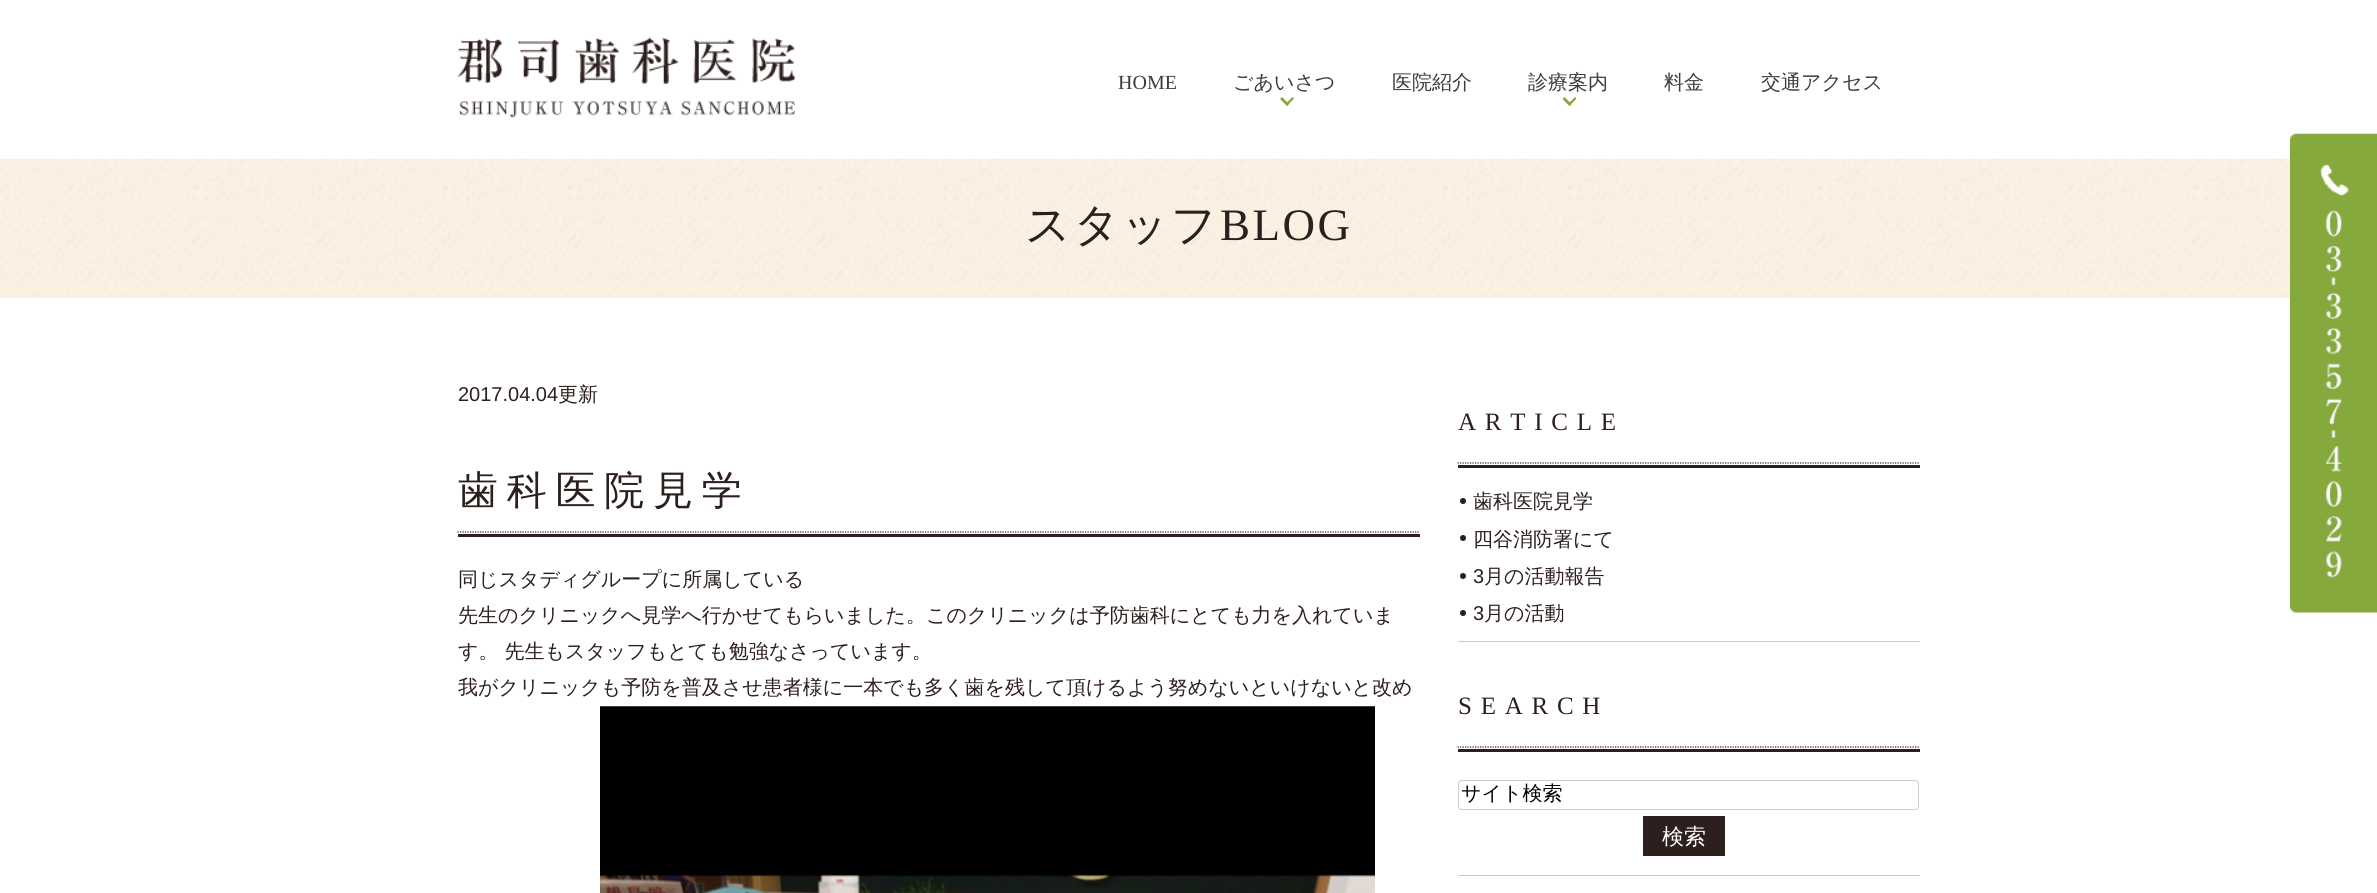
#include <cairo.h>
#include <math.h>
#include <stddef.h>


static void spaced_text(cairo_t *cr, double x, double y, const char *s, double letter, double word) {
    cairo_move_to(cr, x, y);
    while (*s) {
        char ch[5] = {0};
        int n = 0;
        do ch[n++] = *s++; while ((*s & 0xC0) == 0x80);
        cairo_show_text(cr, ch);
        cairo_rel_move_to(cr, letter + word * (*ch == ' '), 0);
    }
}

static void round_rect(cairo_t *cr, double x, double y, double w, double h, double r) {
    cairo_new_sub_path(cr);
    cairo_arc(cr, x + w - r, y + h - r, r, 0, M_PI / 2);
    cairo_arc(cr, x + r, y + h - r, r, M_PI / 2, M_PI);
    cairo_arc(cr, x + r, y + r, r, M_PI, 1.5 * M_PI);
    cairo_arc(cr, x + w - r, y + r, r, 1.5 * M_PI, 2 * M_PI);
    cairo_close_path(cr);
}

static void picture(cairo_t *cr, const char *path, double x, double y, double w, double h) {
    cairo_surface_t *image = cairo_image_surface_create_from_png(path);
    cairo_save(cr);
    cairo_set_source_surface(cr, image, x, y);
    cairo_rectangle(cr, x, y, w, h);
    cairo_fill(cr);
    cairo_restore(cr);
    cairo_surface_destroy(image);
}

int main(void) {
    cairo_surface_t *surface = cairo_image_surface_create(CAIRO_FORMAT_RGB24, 2377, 893);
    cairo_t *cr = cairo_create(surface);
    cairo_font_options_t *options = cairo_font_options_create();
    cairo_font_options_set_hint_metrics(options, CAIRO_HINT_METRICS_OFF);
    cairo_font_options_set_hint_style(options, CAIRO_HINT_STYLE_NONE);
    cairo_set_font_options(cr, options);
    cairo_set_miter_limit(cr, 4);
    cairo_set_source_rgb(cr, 1, 1, 1);
    cairo_paint(cr);
    picture(cr, "img1.png", 457, 37, 338, 81);
    cairo_select_font_face(cr, "Liberation Serif", CAIRO_FONT_SLANT_NORMAL, CAIRO_FONT_WEIGHT_NORMAL);
    cairo_set_font_size(cr, 20);
    cairo_set_source_rgb(cr, 0.235, 0.235, 0.235);
    cairo_move_to(cr, 1118, 89);
    cairo_show_text(cr, "HOME");
    cairo_select_font_face(cr, "WenQuanYi Zen Hei Medium", CAIRO_FONT_SLANT_NORMAL, CAIRO_FONT_WEIGHT_NORMAL);
    cairo_move_to(cr, 1233, 89);
    cairo_show_text(cr, "ごあいさつ");
    cairo_set_source_rgb(cr, 0.525, 0.663, 0.239);
    cairo_new_path(cr);
    cairo_move_to(cr, 1292.5, 97);
    cairo_line_to(cr, 1294, 98.5);
    cairo_line_to(cr, 1287, 106);
    cairo_line_to(cr, 1285.5, 104);
    cairo_close_path(cr);
    cairo_fill(cr);
    cairo_new_path(cr);
    cairo_move_to(cr, 1282, 97);
    cairo_line_to(cr, 1289, 104);
    cairo_line_to(cr, 1287, 106);
    cairo_line_to(cr, 1280, 99);
    cairo_close_path(cr);
    cairo_fill(cr);
    cairo_set_source_rgb(cr, 0.235, 0.235, 0.235);
    cairo_move_to(cr, 1392, 89);
    cairo_show_text(cr, "医院紹介");
    cairo_move_to(cr, 1528, 89);
    cairo_show_text(cr, "診療案内");
    cairo_set_source_rgb(cr, 0.525, 0.663, 0.239);
    cairo_new_path(cr);
    cairo_move_to(cr, 1575, 97);
    cairo_line_to(cr, 1576.5, 98.5);
    cairo_line_to(cr, 1569.5, 106);
    cairo_line_to(cr, 1568, 104);
    cairo_close_path(cr);
    cairo_fill(cr);
    cairo_new_path(cr);
    cairo_move_to(cr, 1564.5, 97);
    cairo_line_to(cr, 1571.5, 104);
    cairo_line_to(cr, 1569.5, 106);
    cairo_line_to(cr, 1562.5, 99);
    cairo_close_path(cr);
    cairo_fill(cr);
    cairo_set_source_rgb(cr, 0.235, 0.235, 0.235);
    cairo_move_to(cr, 1664, 89);
    cairo_show_text(cr, "料金");
    cairo_move_to(cr, 1761, 89);
    cairo_show_text(cr, "交通アクセス");
    cairo_set_source_rgb(cr, 0.98, 0.945, 0.89);
    cairo_rectangle(cr, 0, 297, 2290, 1);
    cairo_fill(cr);
    picture(cr, "img2.png", 0, 158, 2290, 139);
    cairo_set_font_size(cr, 45);
    cairo_set_source_rgb(cr, 0.176, 0.122, 0.114);
    spaced_text(cr, 1025, 240, "スタッフ", 2.5, 0);
    cairo_select_font_face(cr, "Liberation Serif", CAIRO_FONT_SLANT_NORMAL, CAIRO_FONT_WEIGHT_NORMAL);
    spaced_text(cr, 1220, 240, "BLOG", 2.5, 0);
    picture(cr, "img3.png", 2290, 133, 87, 480);
    cairo_select_font_face(cr, "Liberation Sans", CAIRO_FONT_SLANT_NORMAL, CAIRO_FONT_WEIGHT_NORMAL);
    cairo_set_font_size(cr, 20);
    cairo_move_to(cr, 458, 401);
    cairo_show_text(cr, "2017.04.04");
    cairo_select_font_face(cr, "WenQuanYi Zen Hei Medium", CAIRO_FONT_SLANT_NORMAL, CAIRO_FONT_WEIGHT_NORMAL);
    cairo_move_to(cr, 558, 401);
    cairo_show_text(cr, "更新");
    cairo_rectangle(cr, 458, 534, 962, 3);
    cairo_fill(cr);
    cairo_set_font_size(cr, 40);
    spaced_text(cr, 458, 504, "歯科医院見学", 8.75, 0);
    cairo_new_path(cr);
    cairo_move_to(cr, 457.5, 532);
    cairo_line_to(cr, 1420, 532);
    cairo_set_line_width(cr, 1.2);
    cairo_set_dash(cr, (double[]){1.25, 1.25}, 2, 0);
    cairo_stroke(cr);
    cairo_set_font_size(cr, 20);
    cairo_move_to(cr, 458, 586);
    cairo_show_text(cr, "同じスタディグループに所属している");
    cairo_move_to(cr, 458, 622);
    cairo_show_text(cr, "先生のクリニックへ見学へ行かせてもらいました。このクリニックは予防歯科にとても力を入れていま");
    cairo_move_to(cr, 458, 658);
    cairo_show_text(cr, "す。 先生もスタッフもとても勉強なさっています。");
    cairo_move_to(cr, 458, 694);
    cairo_show_text(cr, "我がクリニックも予防を普及させ患者様に一本でも多く歯を残して頂けるよう努めないといけないと改め");
    picture(cr, "img4.png", 600, 706, 775, 187);
    cairo_rectangle(cr, 1458, 465, 462, 3);
    cairo_fill(cr);
    cairo_select_font_face(cr, "Liberation Serif", CAIRO_FONT_SLANT_NORMAL, CAIRO_FONT_WEIGHT_NORMAL);
    cairo_set_font_size(cr, 25);
    spaced_text(cr, 1458, 430, "ARTICLE", 8.75, 0);
    cairo_new_path(cr);
    cairo_move_to(cr, 1457.5, 463);
    cairo_line_to(cr, 1920, 463);
    cairo_stroke(cr);
    cairo_arc(cr, 1463, 501, 3, 0, 2 * M_PI);
    cairo_fill(cr);
    cairo_select_font_face(cr, "WenQuanYi Zen Hei Medium", CAIRO_FONT_SLANT_NORMAL, CAIRO_FONT_WEIGHT_NORMAL);
    cairo_set_font_size(cr, 20);
    cairo_move_to(cr, 1473, 508);
    cairo_show_text(cr, "歯科医院見学");
    cairo_new_path(cr);
    cairo_arc(cr, 1463, 538, 3, 0, 2 * M_PI);
    cairo_fill(cr);
    cairo_move_to(cr, 1473, 546);
    cairo_show_text(cr, "四谷消防署にて");
    cairo_new_path(cr);
    cairo_arc(cr, 1463, 576, 3, 0, 2 * M_PI);
    cairo_fill(cr);
    cairo_select_font_face(cr, "Liberation Sans", CAIRO_FONT_SLANT_NORMAL, CAIRO_FONT_WEIGHT_NORMAL);
    cairo_move_to(cr, 1473, 583);
    cairo_show_text(cr, "3");
    cairo_select_font_face(cr, "WenQuanYi Zen Hei Medium", CAIRO_FONT_SLANT_NORMAL, CAIRO_FONT_WEIGHT_NORMAL);
    cairo_move_to(cr, 1484, 583);
    cairo_show_text(cr, "月の活動報告");
    cairo_new_path(cr);
    cairo_arc(cr, 1463, 613, 3, 0, 2 * M_PI);
    cairo_fill(cr);
    cairo_select_font_face(cr, "Liberation Sans", CAIRO_FONT_SLANT_NORMAL, CAIRO_FONT_WEIGHT_NORMAL);
    cairo_move_to(cr, 1473, 620);
    cairo_show_text(cr, "3");
    cairo_select_font_face(cr, "WenQuanYi Zen Hei Medium", CAIRO_FONT_SLANT_NORMAL, CAIRO_FONT_WEIGHT_NORMAL);
    cairo_move_to(cr, 1484, 620);
    cairo_show_text(cr, "月の活動");
    cairo_set_source_rgb(cr, 0.788, 0.788, 0.788);
    cairo_rectangle(cr, 1458, 641, 462, 1);
    cairo_fill(cr);
    cairo_set_source_rgb(cr, 0.176, 0.122, 0.114);
    cairo_rectangle(cr, 1458, 749, 462, 3);
    cairo_fill(cr);
    cairo_select_font_face(cr, "Liberation Serif", CAIRO_FONT_SLANT_NORMAL, CAIRO_FONT_WEIGHT_NORMAL);
    cairo_set_font_size(cr, 25);
    spaced_text(cr, 1458, 714, "SEARCH", 8.75, 0);
    cairo_new_path(cr);
    cairo_move_to(cr, 1457.5, 747);
    cairo_line_to(cr, 1920, 747);
    cairo_stroke(cr);
    round_rect(cr, 1458.5, 780.5, 460, 29, 3.5);
    cairo_set_source_rgb(cr, 0.8, 0.8, 0.8);
    cairo_set_line_width(cr, 1);
    cairo_set_dash(cr, NULL, 0, 0);
    cairo_stroke(cr);
    cairo_select_font_face(cr, "WenQuanYi Zen Hei Medium", CAIRO_FONT_SLANT_NORMAL, CAIRO_FONT_WEIGHT_NORMAL);
    cairo_set_font_size(cr, 20);
    cairo_set_source_rgb(cr, 0, 0, 0);
    cairo_move_to(cr, 1461, 800);
    cairo_show_text(cr, "サイト検索");
    cairo_set_source_rgb(cr, 0.176, 0.122, 0.114);
    cairo_rectangle(cr, 1643, 816, 82, 40);
    cairo_fill(cr);
    cairo_set_font_size(cr, 22);
    cairo_set_source_rgb(cr, 1, 1, 1);
    cairo_move_to(cr, 1662, 844);
    cairo_show_text(cr, "検索");
    cairo_set_source_rgb(cr, 0.788, 0.788, 0.788);
    cairo_rectangle(cr, 1458, 875, 462, 1);
    cairo_fill(cr);
    cairo_surface_write_to_png(surface, "page.png");
    cairo_font_options_destroy(options);
    cairo_destroy(cr);
    cairo_surface_destroy(surface);
    return 0;
}
